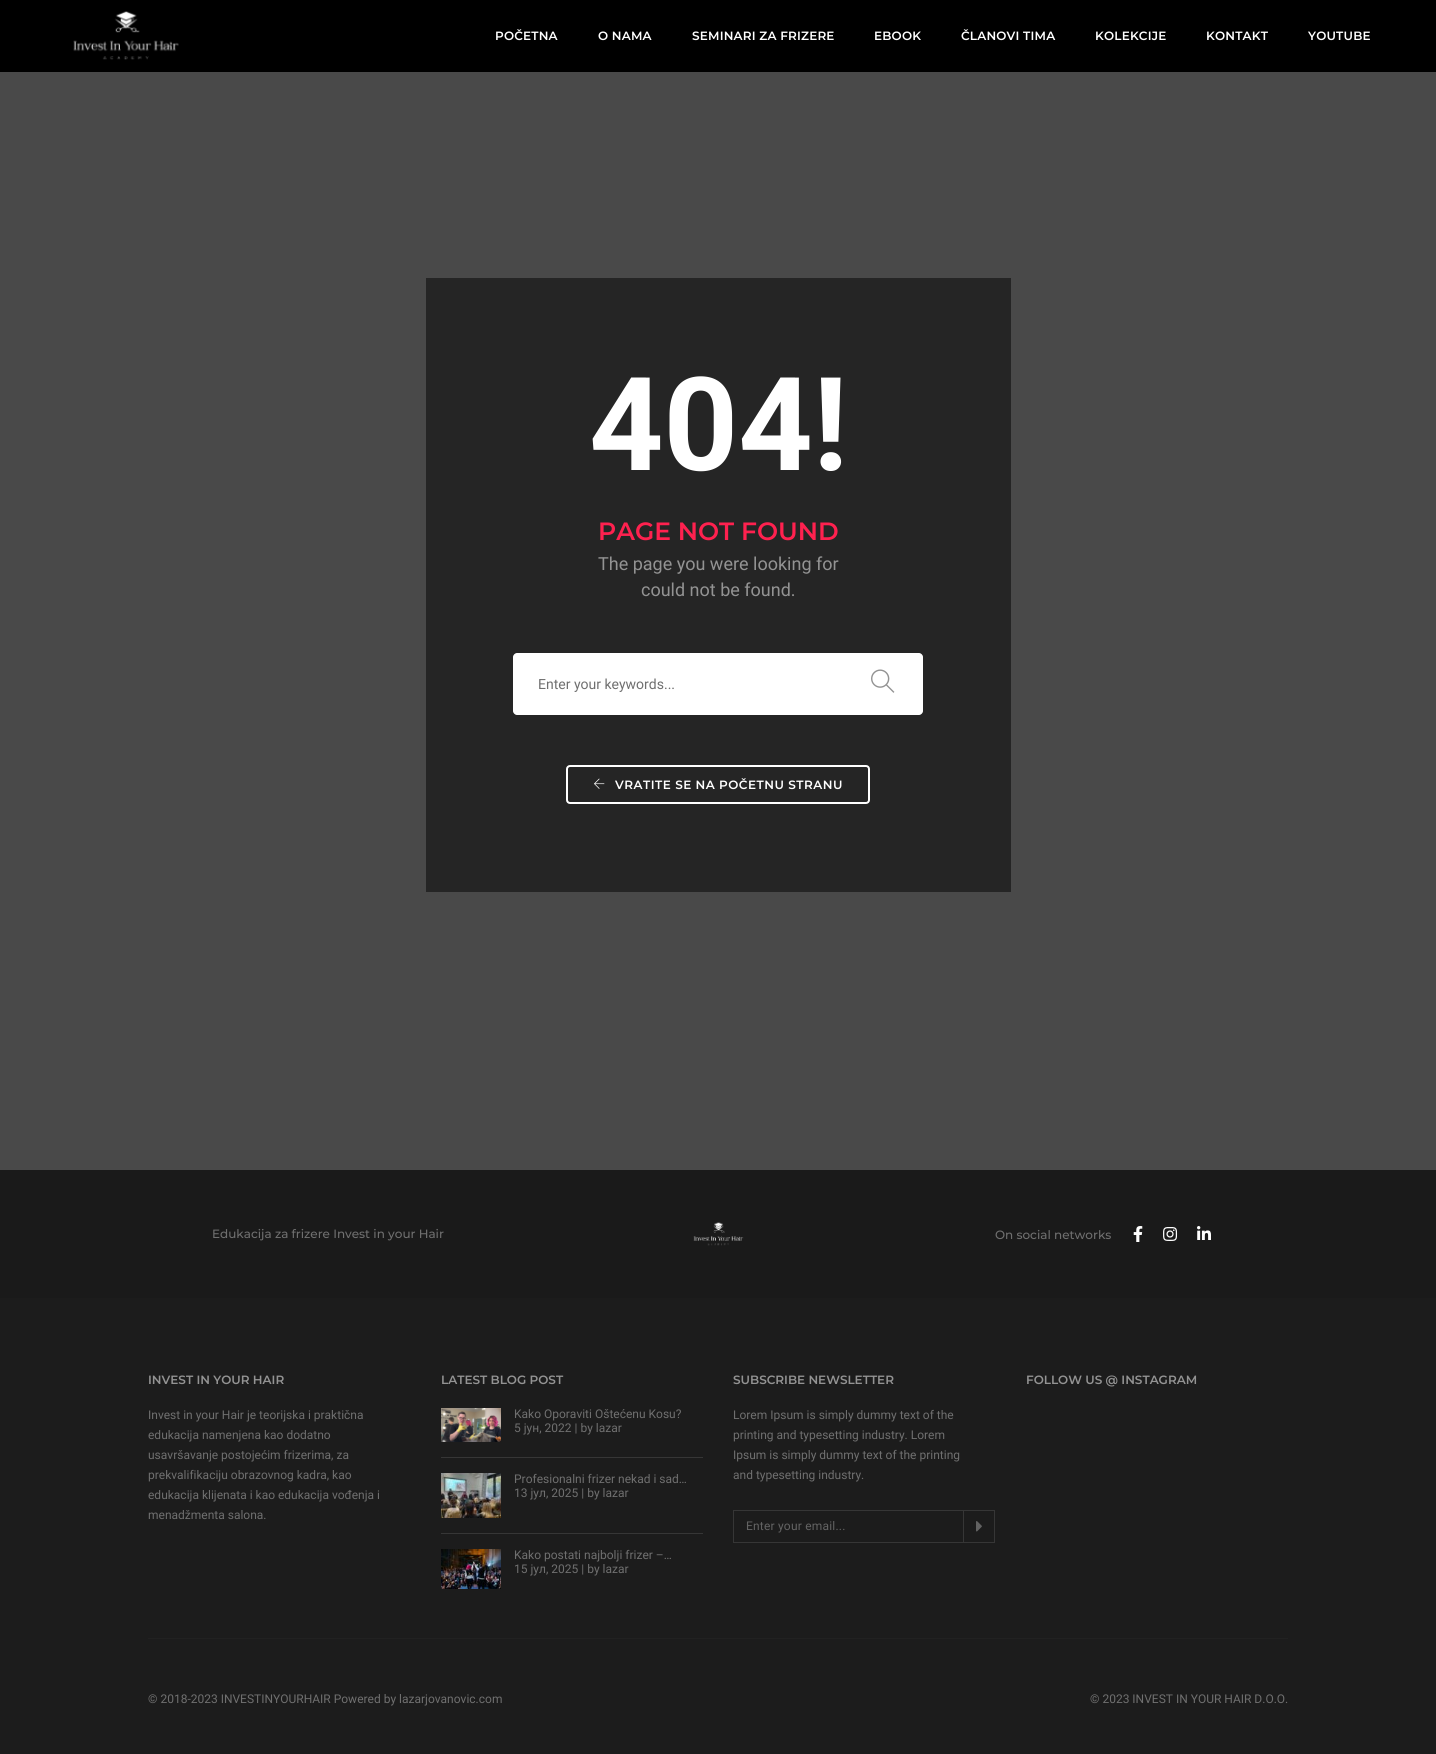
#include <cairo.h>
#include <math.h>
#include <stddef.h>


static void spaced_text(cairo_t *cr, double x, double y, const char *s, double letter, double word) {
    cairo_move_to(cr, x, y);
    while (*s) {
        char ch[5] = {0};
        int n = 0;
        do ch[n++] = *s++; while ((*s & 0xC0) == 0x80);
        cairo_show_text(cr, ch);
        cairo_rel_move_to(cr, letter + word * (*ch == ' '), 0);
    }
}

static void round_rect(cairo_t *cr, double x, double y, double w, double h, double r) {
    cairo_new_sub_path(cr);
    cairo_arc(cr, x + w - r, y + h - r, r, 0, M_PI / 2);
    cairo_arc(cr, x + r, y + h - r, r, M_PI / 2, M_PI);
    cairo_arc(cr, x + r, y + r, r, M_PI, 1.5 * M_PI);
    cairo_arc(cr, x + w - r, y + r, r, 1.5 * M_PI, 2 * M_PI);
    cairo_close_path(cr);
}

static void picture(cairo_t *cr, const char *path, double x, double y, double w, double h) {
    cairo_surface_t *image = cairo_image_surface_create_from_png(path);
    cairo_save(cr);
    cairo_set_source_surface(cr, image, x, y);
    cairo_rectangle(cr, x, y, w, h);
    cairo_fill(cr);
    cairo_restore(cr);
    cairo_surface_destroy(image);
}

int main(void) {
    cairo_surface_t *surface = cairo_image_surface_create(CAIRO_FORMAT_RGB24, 1436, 1754);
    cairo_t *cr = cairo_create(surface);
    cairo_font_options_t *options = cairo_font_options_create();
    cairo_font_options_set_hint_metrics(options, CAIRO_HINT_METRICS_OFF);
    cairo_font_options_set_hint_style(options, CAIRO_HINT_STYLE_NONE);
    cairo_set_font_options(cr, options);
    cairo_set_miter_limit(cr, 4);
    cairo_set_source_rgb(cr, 0.286, 0.286, 0.286);
    cairo_paint(cr);
    cairo_set_source_rgb(cr, 0, 0, 0);
    cairo_rectangle(cr, 0, 0, 1436, 72);
    cairo_fill(cr);
    picture(cr, "img1.png", 73, 11, 106, 49);
    cairo_select_font_face(cr, "Montserrat SemiBold", CAIRO_FONT_SLANT_NORMAL, CAIRO_FONT_WEIGHT_NORMAL);
    cairo_set_font_size(cr, 12);
    cairo_set_source_rgb(cr, 1, 1, 1);
    spaced_text(cr, 495, 40, "POČETNA", 0.2, 0);
    spaced_text(cr, 598, 40, "O NAMA", 0.2, 0);
    spaced_text(cr, 692, 40, "SEMINARI ZA FRIZERE", 0.2, 0);
    spaced_text(cr, 874, 40, "EBOOK", 0.2, 0);
    spaced_text(cr, 961, 40, "ČLANOVI TIMA", 0.2, 0);
    spaced_text(cr, 1095, 40, "KOLEKCIJE", 0.2, 0);
    spaced_text(cr, 1206, 40, "KONTAKT", 0.2, 0);
    spaced_text(cr, 1308, 40, "YOUTUBE", 0.2, 0);
    cairo_set_source_rgb(cr, 0.145, 0.145, 0.145);
    cairo_rectangle(cr, 426, 278, 585, 614);
    cairo_fill(cr);
    cairo_select_font_face(cr, "Roboto", CAIRO_FONT_SLANT_NORMAL, CAIRO_FONT_WEIGHT_BOLD);
    cairo_set_font_size(cr, 130);
    cairo_set_source_rgb(cr, 1, 1, 1);
    cairo_move_to(cr, 589, 470);
    cairo_show_text(cr, "404!");
    cairo_select_font_face(cr, "Montserrat SemiBold", CAIRO_FONT_SLANT_NORMAL, CAIRO_FONT_WEIGHT_NORMAL);
    cairo_set_font_size(cr, 25);
    cairo_set_source_rgb(cr, 1, 0.129, 0.31);
    cairo_move_to(cr, 598, 540);
    cairo_show_text(cr, "PAGE NOT FOUND");
    cairo_select_font_face(cr, "Roboto", CAIRO_FONT_SLANT_NORMAL, CAIRO_FONT_WEIGHT_NORMAL);
    cairo_set_font_size(cr, 18);
    cairo_set_source_rgb(cr, 0.576, 0.576, 0.576);
    cairo_move_to(cr, 598, 570);
    cairo_show_text(cr, "The page you were looking for");
    cairo_move_to(cr, 641, 596);
    cairo_show_text(cr, "could not be found.");
    cairo_set_source_rgb(cr, 1, 1, 1);
    cairo_new_path(cr);
    cairo_move_to(cr, 517, 653);
    cairo_line_to(cr, 845, 653);
    cairo_line_to(cr, 845, 715);
    cairo_line_to(cr, 517, 715);
    cairo_curve_to(cr, 515, 715, 513, 713, 513, 711);
    cairo_line_to(cr, 513, 657);
    cairo_curve_to(cr, 513, 655, 515, 653, 517, 653);
    cairo_close_path(cr);
    cairo_fill(cr);
    cairo_set_font_size(cr, 14);
    cairo_set_source_rgb(cr, 0.435, 0.435, 0.435);
    cairo_move_to(cr, 538, 689);
    cairo_show_text(cr, "Enter your keywords...");
    cairo_set_source_rgb(cr, 1, 1, 1);
    cairo_new_path(cr);
    cairo_move_to(cr, 844, 653);
    cairo_line_to(cr, 919, 653);
    cairo_curve_to(cr, 921, 653, 923, 655, 923, 657);
    cairo_line_to(cr, 923, 711);
    cairo_curve_to(cr, 923, 713, 921, 715, 919, 715);
    cairo_line_to(cr, 844, 715);
    cairo_close_path(cr);
    cairo_fill(cr);
    picture(cr, "img2.png", 871, 669, 24, 24);
    round_rect(cr, 567, 766, 302, 37, 3);
    cairo_stroke(cr);
    picture(cr, "img3.png", 594, 778, 11, 11);
    cairo_select_font_face(cr, "Montserrat SemiBold", CAIRO_FONT_SLANT_NORMAL, CAIRO_FONT_WEIGHT_NORMAL);
    cairo_set_font_size(cr, 12);
    spaced_text(cr, 615, 789, "VRATITE SE NA POČETNU STRANU", 0.5, 0);
    cairo_set_source_rgb(cr, 0.11, 0.11, 0.11);
    cairo_rectangle(cr, 0, 1298, 1436, 456);
    cairo_fill(cr);
    cairo_set_source_rgb(cr, 0.102, 0.102, 0.102);
    cairo_rectangle(cr, 0, 1170, 1436, 128);
    cairo_fill(cr);
    cairo_select_font_face(cr, "Montserrat Medium", CAIRO_FONT_SLANT_NORMAL, CAIRO_FONT_WEIGHT_NORMAL);
    cairo_set_source_rgb(cr, 0.435, 0.435, 0.435);
    cairo_move_to(cr, 212, 1238);
    cairo_show_text(cr, "Edukacija za frizere Invest in your Hair");
    picture(cr, "img4.png", 693, 1222, 51, 24);
    cairo_move_to(cr, 995, 1239);
    cairo_show_text(cr, "On social networks");
    picture(cr, "img5.png", 1133, 1226, 10, 16);
    picture(cr, "img6.png", 1163, 1227, 15, 14);
    picture(cr, "img7.png", 1197, 1226, 14, 14);
    cairo_select_font_face(cr, "Montserrat SemiBold", CAIRO_FONT_SLANT_NORMAL, CAIRO_FONT_WEIGHT_NORMAL);
    cairo_set_source_rgb(cr, 0.576, 0.576, 0.576);
    cairo_move_to(cr, 148, 1384);
    cairo_show_text(cr, "INVEST IN YOUR HAIR");
    cairo_select_font_face(cr, "Roboto", CAIRO_FONT_SLANT_NORMAL, CAIRO_FONT_WEIGHT_NORMAL);
    cairo_set_source_rgb(cr, 0.435, 0.435, 0.435);
    cairo_move_to(cr, 148, 1419);
    cairo_show_text(cr, "Invest in your Hair je teorijska i praktična");
    cairo_move_to(cr, 148, 1439);
    cairo_show_text(cr, "edukacija namenjena kao dodatno");
    cairo_move_to(cr, 148, 1459);
    cairo_show_text(cr, "usavršavanje postojećim frizerima, za");
    cairo_move_to(cr, 148, 1479);
    cairo_show_text(cr, "prekvalifikaciju obrazovnog kadra, kao");
    cairo_move_to(cr, 148, 1499);
    cairo_show_text(cr, "edukacija klijenata i kao edukacija vođenja i");
    cairo_move_to(cr, 148, 1519);
    cairo_show_text(cr, "menadžmenta salona.");
    cairo_select_font_face(cr, "Montserrat SemiBold", CAIRO_FONT_SLANT_NORMAL, CAIRO_FONT_WEIGHT_NORMAL);
    cairo_set_source_rgb(cr, 0.576, 0.576, 0.576);
    cairo_move_to(cr, 441, 1384);
    cairo_show_text(cr, "LATEST BLOG POST");
    cairo_set_source_rgb(cr, 0.212, 0.212, 0.212);
    cairo_rectangle(cr, 441, 1457, 262, 1);
    cairo_fill(cr);
    picture(cr, "img8.png", 441, 1408, 60, 34);
    cairo_select_font_face(cr, "Roboto", CAIRO_FONT_SLANT_NORMAL, CAIRO_FONT_WEIGHT_NORMAL);
    cairo_set_source_rgb(cr, 0.435, 0.435, 0.435);
    cairo_move_to(cr, 514, 1418);
    cairo_show_text(cr, "Kako Oporaviti Oštećenu Kosu?");
    cairo_move_to(cr, 514, 1432);
    cairo_show_text(cr, "5 јун, 2022 | by lazar");
    cairo_set_source_rgb(cr, 0.212, 0.212, 0.212);
    cairo_rectangle(cr, 441, 1533, 262, 1);
    cairo_fill(cr);
    picture(cr, "img9.png", 441, 1473, 60, 45);
    cairo_set_source_rgb(cr, 0.435, 0.435, 0.435);
    cairo_move_to(cr, 514, 1483);
    cairo_show_text(cr, "Profesionalni frizer nekad i sad…");
    cairo_move_to(cr, 514, 1497);
    cairo_show_text(cr, "13 јул, 2025 | by lazar");
    picture(cr, "img10.png", 441, 1549, 60, 40);
    cairo_move_to(cr, 514, 1559);
    cairo_show_text(cr, "Kako postati najbolji frizer –…");
    cairo_move_to(cr, 514, 1573);
    cairo_show_text(cr, "15 јул, 2025 | by lazar");
    cairo_select_font_face(cr, "Montserrat SemiBold", CAIRO_FONT_SLANT_NORMAL, CAIRO_FONT_WEIGHT_NORMAL);
    cairo_set_source_rgb(cr, 0.576, 0.576, 0.576);
    cairo_move_to(cr, 733, 1384);
    cairo_show_text(cr, "SUBSCRIBE NEWSLETTER");
    cairo_select_font_face(cr, "Roboto", CAIRO_FONT_SLANT_NORMAL, CAIRO_FONT_WEIGHT_NORMAL);
    cairo_set_source_rgb(cr, 0.435, 0.435, 0.435);
    cairo_move_to(cr, 733, 1419);
    cairo_show_text(cr, "Lorem Ipsum is simply dummy text of the");
    cairo_move_to(cr, 733, 1439);
    cairo_show_text(cr, "printing and typesetting industry. Lorem");
    cairo_move_to(cr, 733, 1459);
    cairo_show_text(cr, "Ipsum is simply dummy text of the printing");
    cairo_move_to(cr, 733, 1479);
    cairo_show_text(cr, "and typesetting industry.");
    cairo_set_source_rgb(cr, 0.212, 0.212, 0.212);
    cairo_rectangle(cr, 963, 1510, 32, 1);
    cairo_fill(cr);
    cairo_rectangle(cr, 994, 1510, 1, 33);
    cairo_fill(cr);
    cairo_rectangle(cr, 963, 1542, 32, 1);
    cairo_fill(cr);
    cairo_rectangle(cr, 733.5, 1510.5, 230, 32);
    cairo_set_line_width(cr, 1);
    cairo_stroke(cr);
    cairo_set_source_rgb(cr, 0.388, 0.388, 0.388);
    spaced_text(cr, 746, 1530, "Enter your email...", 0.2, 0);
    picture(cr, "img11.png", 976, 1521, 6, 11);
    cairo_select_font_face(cr, "Montserrat SemiBold", CAIRO_FONT_SLANT_NORMAL, CAIRO_FONT_WEIGHT_NORMAL);
    cairo_set_source_rgb(cr, 0.576, 0.576, 0.576);
    cairo_move_to(cr, 1026, 1384);
    cairo_show_text(cr, "FOLLOW US @ INSTAGRAM");
    cairo_set_source_rgb(cr, 0.129, 0.129, 0.129);
    cairo_rectangle(cr, 148, 1638, 1140, 1);
    cairo_fill(cr);
    cairo_select_font_face(cr, "Roboto", CAIRO_FONT_SLANT_NORMAL, CAIRO_FONT_WEIGHT_NORMAL);
    cairo_set_source_rgb(cr, 0.435, 0.435, 0.435);
    cairo_move_to(cr, 148, 1703);
    cairo_show_text(cr, "© 2018-2023 INVESTINYOURHAIR Powered by lazarjovanovic.com");
    cairo_move_to(cr, 1090, 1703);
    cairo_show_text(cr, "© 2023 INVEST IN YOUR HAIR D.O.O.");
    cairo_surface_write_to_png(surface, "page.png");
    cairo_font_options_destroy(options);
    cairo_destroy(cr);
    cairo_surface_destroy(surface);
    return 0;
}
